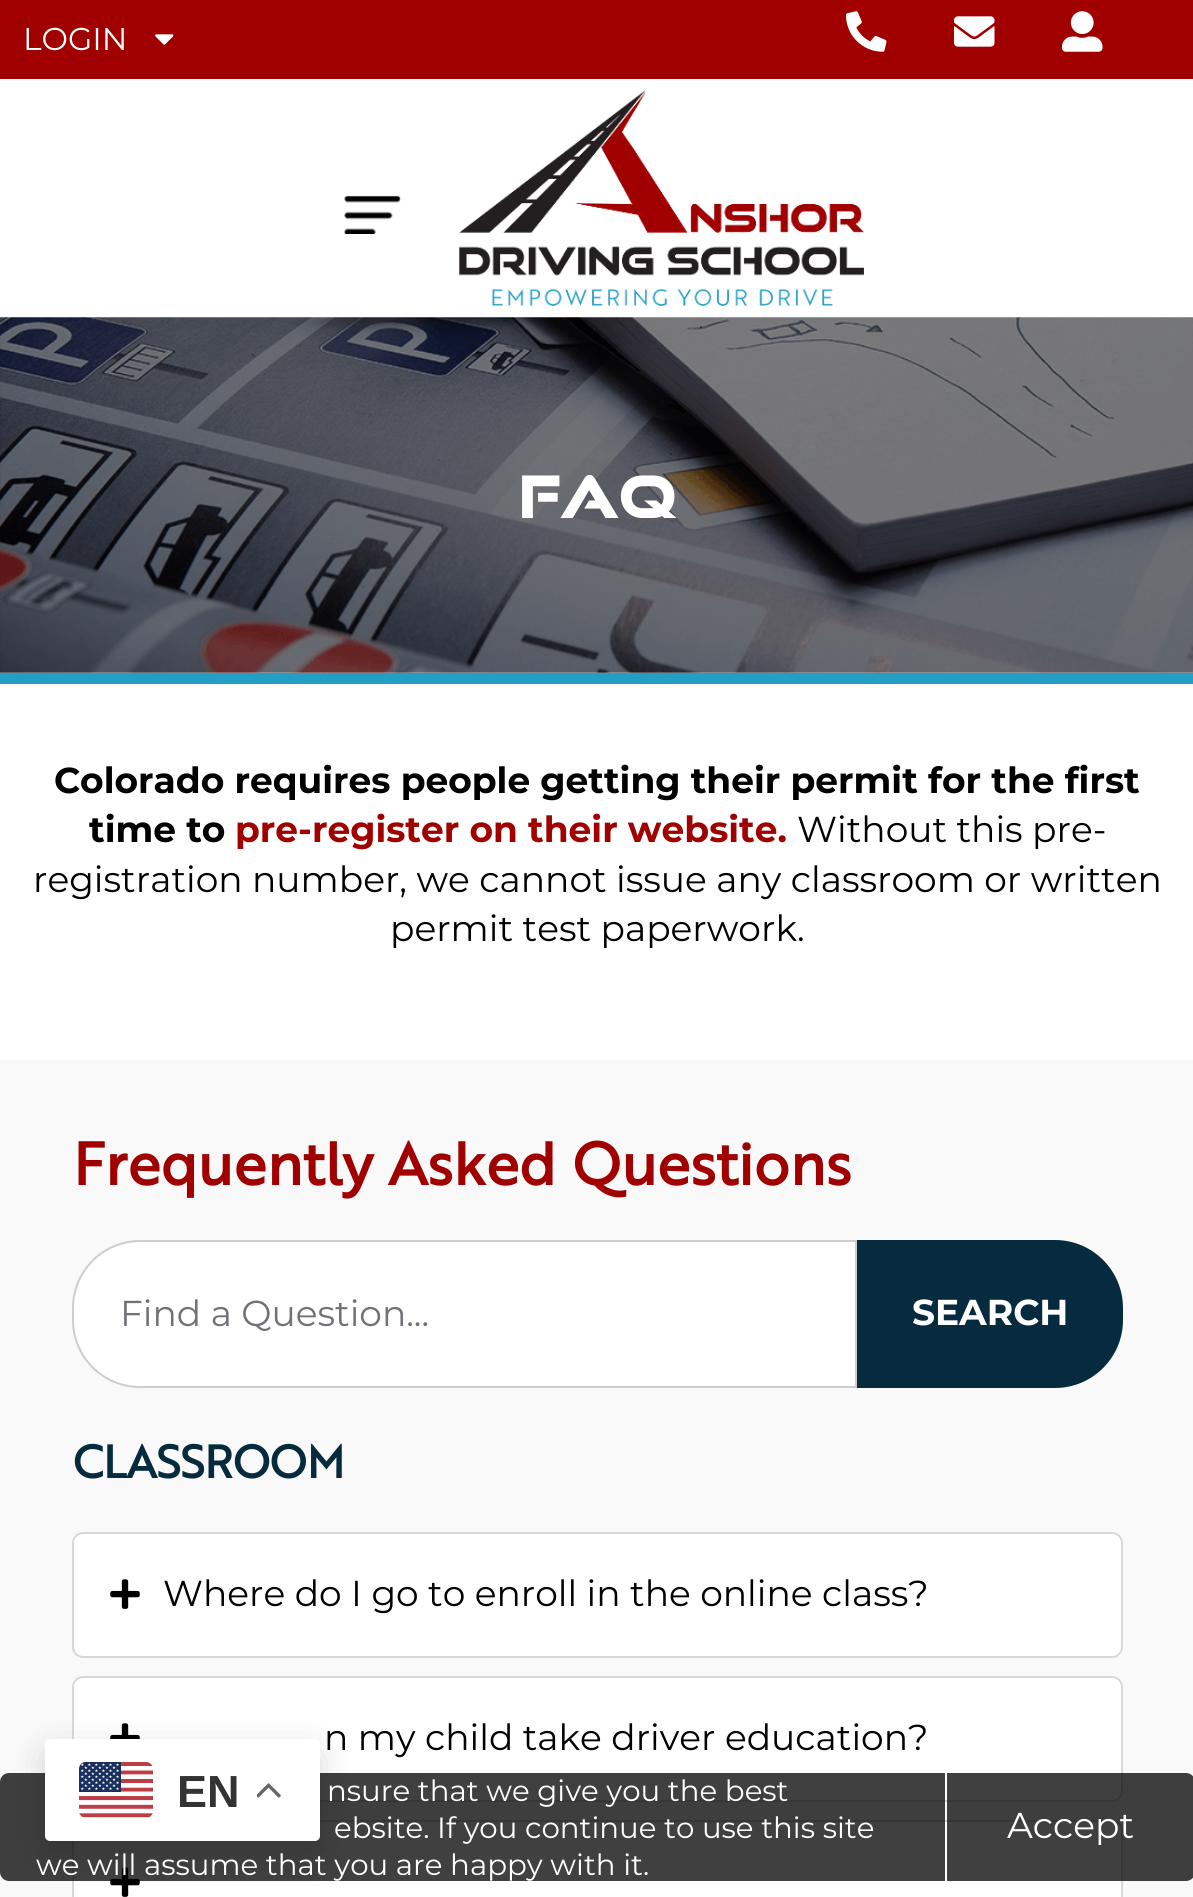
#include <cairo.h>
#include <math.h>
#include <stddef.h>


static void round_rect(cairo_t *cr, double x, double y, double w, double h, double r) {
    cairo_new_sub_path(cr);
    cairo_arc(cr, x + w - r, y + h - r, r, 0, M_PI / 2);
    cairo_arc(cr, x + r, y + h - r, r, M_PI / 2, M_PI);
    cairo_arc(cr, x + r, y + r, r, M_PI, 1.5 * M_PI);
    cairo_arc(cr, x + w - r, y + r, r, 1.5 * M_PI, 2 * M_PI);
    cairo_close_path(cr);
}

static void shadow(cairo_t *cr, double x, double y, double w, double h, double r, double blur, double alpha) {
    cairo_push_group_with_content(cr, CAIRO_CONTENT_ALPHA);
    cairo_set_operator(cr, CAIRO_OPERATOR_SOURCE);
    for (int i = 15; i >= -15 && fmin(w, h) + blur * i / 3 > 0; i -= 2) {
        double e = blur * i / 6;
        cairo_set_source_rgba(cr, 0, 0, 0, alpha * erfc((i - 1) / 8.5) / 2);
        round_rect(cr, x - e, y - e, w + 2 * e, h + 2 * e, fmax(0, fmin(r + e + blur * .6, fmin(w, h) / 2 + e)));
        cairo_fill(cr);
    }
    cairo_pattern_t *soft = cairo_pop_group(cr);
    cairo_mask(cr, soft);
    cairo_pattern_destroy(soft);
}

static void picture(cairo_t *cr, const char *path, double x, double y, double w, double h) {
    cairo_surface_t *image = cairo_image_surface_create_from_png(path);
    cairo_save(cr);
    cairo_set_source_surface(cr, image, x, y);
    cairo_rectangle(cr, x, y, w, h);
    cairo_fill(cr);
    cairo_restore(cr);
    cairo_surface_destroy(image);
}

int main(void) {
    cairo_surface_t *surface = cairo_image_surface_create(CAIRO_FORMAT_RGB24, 1193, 1897);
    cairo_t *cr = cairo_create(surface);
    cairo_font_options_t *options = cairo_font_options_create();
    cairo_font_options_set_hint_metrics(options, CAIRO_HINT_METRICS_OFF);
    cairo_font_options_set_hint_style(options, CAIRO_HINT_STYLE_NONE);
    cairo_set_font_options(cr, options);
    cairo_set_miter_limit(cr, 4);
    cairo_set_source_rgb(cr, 1, 1, 1);
    cairo_paint(cr);
    cairo_set_source_rgb(cr, 0.627, 0, 0);
    cairo_rectangle(cr, 0, 0, 1193, 79);
    cairo_fill(cr);
    cairo_select_font_face(cr, "Montserrat", CAIRO_FONT_SLANT_NORMAL, CAIRO_FONT_WEIGHT_NORMAL);
    cairo_set_font_size(cr, 31.5);
    cairo_set_source_rgb(cr, 1, 1, 1);
    cairo_move_to(cr, 23, 50);
    cairo_show_text(cr, "LOGIN");
    picture(cr, "img1.png", 155, 34, 19, 11);
    picture(cr, "img2.png", 846, 11, 41, 41);
    picture(cr, "img3.png", 954, 16, 41, 31);
    picture(cr, "img4.png", 1062, 11, 41, 41);
    picture(cr, "img5.png", 344, 195, 57, 39);
    picture(cr, "img6.png", 459, 90, 405, 216);
    picture(cr, "img7.png", 0, 317, 1193, 356);
    cairo_set_source_rgb(cr, 0.137, 0.62, 0.769);
    cairo_rectangle(cr, 0, 673, 1193, 11);
    cairo_fill(cr);
    cairo_select_font_face(cr, "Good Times", CAIRO_FONT_SLANT_NORMAL, CAIRO_FONT_WEIGHT_NORMAL);
    cairo_set_font_size(cr, 58.5);
    cairo_set_source_rgb(cr, 1, 1, 1);
    cairo_move_to(cr, 519, 518);
    cairo_show_text(cr, "FAQ");
    cairo_select_font_face(cr, "Montserrat", CAIRO_FONT_SLANT_NORMAL, CAIRO_FONT_WEIGHT_BOLD);
    cairo_set_font_size(cr, 36);
    cairo_set_source_rgb(cr, 0, 0, 0);
    cairo_move_to(cr, 54, 793);
    cairo_show_text(cr, "Colorado requires people getting their permit for the first");
    cairo_move_to(cr, 89, 842);
    cairo_show_text(cr, "time to");
    cairo_set_source_rgb(cr, 0.627, 0, 0);
    cairo_move_to(cr, 235, 842);
    cairo_show_text(cr, "pre-register on their website.");
    cairo_select_font_face(cr, "Montserrat", CAIRO_FONT_SLANT_NORMAL, CAIRO_FONT_WEIGHT_NORMAL);
    cairo_set_source_rgb(cr, 0, 0, 0);
    cairo_move_to(cr, 797, 842);
    cairo_show_text(cr, "Without this pre-");
    cairo_move_to(cr, 33, 892);
    cairo_show_text(cr, "registration number, we cannot issue any classroom or written");
    cairo_move_to(cr, 390, 941);
    cairo_show_text(cr, "permit test paperwork.");
    cairo_set_source_rgb(cr, 0.976, 0.976, 0.976);
    cairo_rectangle(cr, 0, 1060, 1193, 837);
    cairo_fill(cr);
    cairo_select_font_face(cr, "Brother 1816", CAIRO_FONT_SLANT_NORMAL, CAIRO_FONT_WEIGHT_BOLD);
    cairo_set_font_size(cr, 58.5);
    cairo_set_source_rgb(cr, 0.627, 0, 0);
    cairo_move_to(cr, 73, 1185);
    cairo_show_text(cr, "Frequently Asked Questions");
    cairo_set_source_rgb(cr, 1, 1, 1);
    cairo_new_path(cr);
    cairo_move_to(cr, 140, 1241);
    cairo_line_to(cr, 856, 1241);
    cairo_line_to(cr, 856, 1387);
    cairo_line_to(cr, 140, 1387);
    cairo_curve_to(cr, 103, 1387, 73, 1357, 73, 1320);
    cairo_line_to(cr, 73, 1308);
    cairo_curve_to(cr, 73, 1271, 103, 1241, 140, 1241);
    cairo_close_path(cr);
    cairo_fill_preserve(cr);
    cairo_set_source_rgb(cr, 0.804, 0.804, 0.804);
    cairo_stroke(cr);
    cairo_select_font_face(cr, "Montserrat", CAIRO_FONT_SLANT_NORMAL, CAIRO_FONT_WEIGHT_NORMAL);
    cairo_set_font_size(cr, 36);
    cairo_set_source_rgb(cr, 0.451, 0.443, 0.471);
    cairo_move_to(cr, 120, 1326);
    cairo_show_text(cr, "Find a Question...");
    cairo_set_source_rgb(cr, 0.024, 0.169, 0.243);
    cairo_new_path(cr);
    cairo_move_to(cr, 857, 1240);
    cairo_line_to(cr, 1055, 1240);
    cairo_curve_to(cr, 1092.5, 1240, 1123, 1270.5, 1123, 1308);
    cairo_line_to(cr, 1123, 1320);
    cairo_curve_to(cr, 1123, 1357.5, 1092.5, 1388, 1055, 1388);
    cairo_line_to(cr, 857, 1388);
    cairo_close_path(cr);
    cairo_fill(cr);
    cairo_select_font_face(cr, "Montserrat", CAIRO_FONT_SLANT_NORMAL, CAIRO_FONT_WEIGHT_BOLD);
    cairo_set_source_rgb(cr, 1, 1, 1);
    cairo_move_to(cr, 912, 1325);
    cairo_show_text(cr, "SEARCH");
    cairo_select_font_face(cr, "Brother 1816", CAIRO_FONT_SLANT_NORMAL, CAIRO_FONT_WEIGHT_BOLD);
    cairo_set_font_size(cr, 45);
    cairo_set_source_rgb(cr, 0.024, 0.169, 0.243);
    cairo_move_to(cr, 73, 1478);
    cairo_show_text(cr, "CLASSROOM");
    cairo_set_source_rgb(cr, 1, 1, 1);
    round_rect(cr, 73, 1533, 1049, 124, 10);
    cairo_fill_preserve(cr);
    cairo_set_source_rgb(cr, 0.835, 0.847, 0.863);
    cairo_stroke(cr);
    picture(cr, "img8.png", 110, 1579, 30, 30);
    cairo_select_font_face(cr, "Montserrat", CAIRO_FONT_SLANT_NORMAL, CAIRO_FONT_WEIGHT_NORMAL);
    cairo_set_font_size(cr, 36);
    cairo_set_source_rgb(cr, 0, 0, 0);
    cairo_move_to(cr, 163, 1606);
    cairo_show_text(cr, "Where do I go to enroll in the online class?");
    cairo_set_source_rgb(cr, 1, 1, 1);
    round_rect(cr, 73, 1677, 1049, 124, 10);
    cairo_fill_preserve(cr);
    cairo_set_source_rgb(cr, 0.835, 0.847, 0.863);
    cairo_stroke(cr);
    picture(cr, "img9.png", 110, 1723, 30, 16);
    cairo_set_source_rgb(cr, 0, 0, 0);
    cairo_move_to(cr, 324, 1750);
    cairo_show_text(cr, "n my child take driver education?");
    cairo_set_source_rgb(cr, 1, 1, 1);
    round_rect(cr, 73, 1821, 1049, 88, 10);
    cairo_fill_preserve(cr);
    cairo_set_source_rgb(cr, 0.835, 0.847, 0.863);
    cairo_stroke(cr);
    picture(cr, "img8.png", 110, 1867, 30, 30);
    cairo_set_source_rgba(cr, 0, 0, 0, 0.75);
    cairo_new_path(cr);
    cairo_move_to(cr, 9, 1773);
    cairo_line_to(cr, 945, 1773);
    cairo_line_to(cr, 945, 1881);
    cairo_line_to(cr, 9, 1881);
    cairo_curve_to(cr, 4, 1881, 0, 1877, 0, 1872);
    cairo_line_to(cr, 0, 1782);
    cairo_curve_to(cr, 0, 1777, 4, 1773, 9, 1773);
    cairo_close_path(cr);
    cairo_fill(cr);
    cairo_set_source_rgb(cr, 0, 0, 0);
    shadow(cr, 45, 1751, 275, 101, 5, 17, 0.15);
    cairo_set_source_rgb(cr, 1, 1, 1);
    round_rect(cr, 45, 1739, 275, 102, 5);
    cairo_fill(cr);
    picture(cr, "img10.png", 79, 1762, 74, 56);
    cairo_select_font_face(cr, "Liberation Sans", CAIRO_FONT_SLANT_NORMAL, CAIRO_FONT_WEIGHT_BOLD);
    cairo_set_font_size(cr, 45);
    cairo_set_source_rgb(cr, 0.2, 0.2, 0.2);
    cairo_move_to(cr, 177, 1807);
    cairo_show_text(cr, "EN");
    picture(cr, "img11.png", 257, 1783, 24, 15);
    cairo_select_font_face(cr, "Montserrat", CAIRO_FONT_SLANT_NORMAL, CAIRO_FONT_WEIGHT_NORMAL);
    cairo_set_font_size(cr, 29.25);
    cairo_set_source_rgb(cr, 1, 1, 1);
    cairo_move_to(cr, 327, 1801);
    cairo_show_text(cr, "nsure that we give you the best");
    cairo_move_to(cr, 334, 1838);
    cairo_show_text(cr, "ebsite. If you continue to use this site");
    cairo_move_to(cr, 36, 1875);
    cairo_show_text(cr, "we will assume that you are happy with it.");
    cairo_set_source_rgba(cr, 0, 0, 0, 0.75);
    cairo_new_path(cr);
    cairo_move_to(cr, 947, 1773);
    cairo_line_to(cr, 1186, 1773);
    cairo_curve_to(cr, 1191, 1773, 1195, 1777, 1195, 1782);
    cairo_line_to(cr, 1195, 1872);
    cairo_curve_to(cr, 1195, 1877, 1191, 1881, 1186, 1881);
    cairo_line_to(cr, 947, 1881);
    cairo_close_path(cr);
    cairo_fill(cr);
    cairo_set_font_size(cr, 36);
    cairo_set_source_rgb(cr, 1, 1, 1);
    cairo_move_to(cr, 1007, 1838);
    cairo_show_text(cr, "Accept");
    cairo_surface_write_to_png(surface, "page.png");
    cairo_font_options_destroy(options);
    cairo_destroy(cr);
    cairo_surface_destroy(surface);
    return 0;
}
